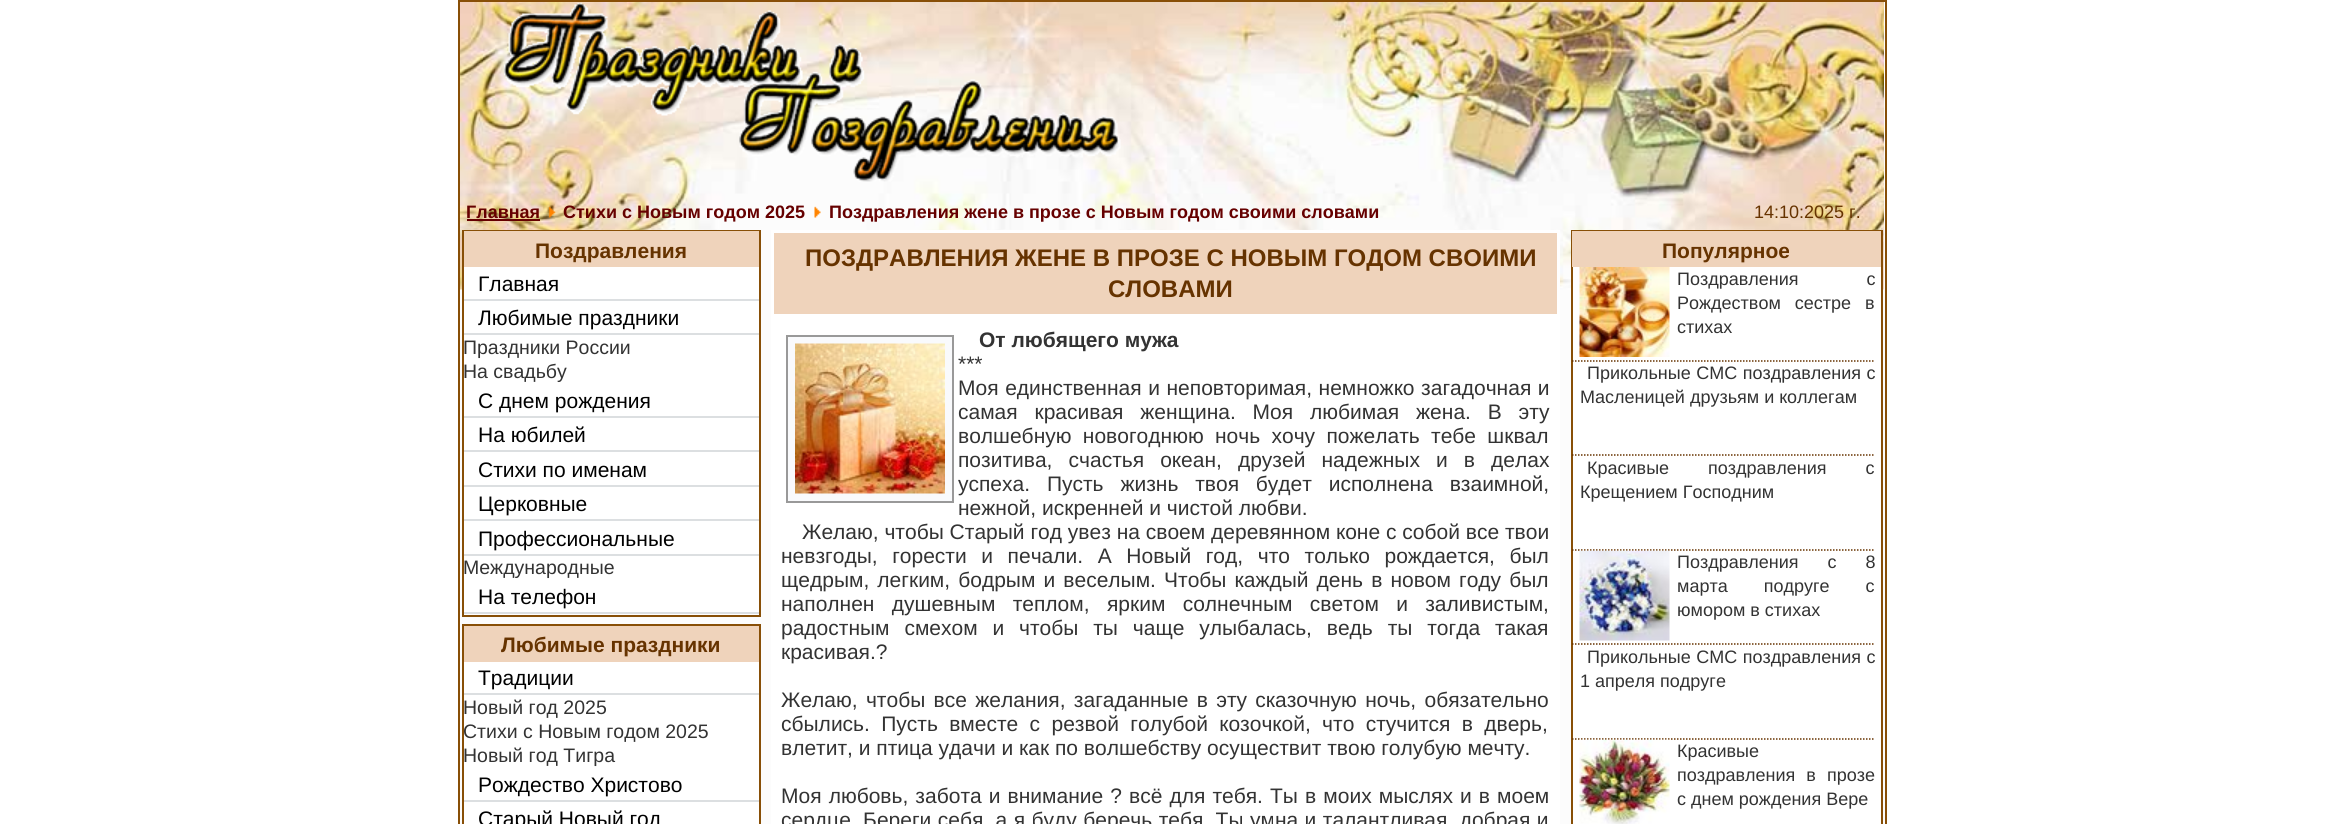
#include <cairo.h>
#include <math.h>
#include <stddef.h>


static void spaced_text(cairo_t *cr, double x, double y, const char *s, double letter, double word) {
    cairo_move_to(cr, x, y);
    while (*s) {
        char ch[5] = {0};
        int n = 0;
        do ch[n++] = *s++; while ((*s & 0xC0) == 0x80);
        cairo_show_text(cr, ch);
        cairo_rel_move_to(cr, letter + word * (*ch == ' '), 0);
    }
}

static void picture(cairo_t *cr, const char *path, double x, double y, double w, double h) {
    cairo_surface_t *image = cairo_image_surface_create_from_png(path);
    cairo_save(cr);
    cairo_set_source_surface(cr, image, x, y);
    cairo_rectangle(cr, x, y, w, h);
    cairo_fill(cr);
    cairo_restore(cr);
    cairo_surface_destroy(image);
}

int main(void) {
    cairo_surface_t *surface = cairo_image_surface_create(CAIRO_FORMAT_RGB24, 2342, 824);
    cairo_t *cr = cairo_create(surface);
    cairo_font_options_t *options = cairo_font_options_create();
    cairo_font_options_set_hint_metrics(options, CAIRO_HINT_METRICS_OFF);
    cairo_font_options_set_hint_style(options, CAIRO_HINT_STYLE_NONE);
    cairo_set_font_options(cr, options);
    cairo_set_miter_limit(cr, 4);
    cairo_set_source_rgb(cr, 1, 1, 1);
    cairo_paint(cr);
    cairo_set_source_rgb(cr, 0.988, 0.988, 0.988);
    cairo_rectangle(cr, 460, 2, 1425, 822);
    cairo_fill(cr);
    picture(cr, "img1.png", 460, 2, 1424, 288);
    cairo_rectangle(cr, 459, 1, 1427, 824);
    cairo_set_source_rgb(cr, 0.533, 0.31, 0.031);
    cairo_stroke(cr);
    picture(cr, "img2.png", 503, 2, 618, 180);
    cairo_select_font_face(cr, "Liberation Sans", CAIRO_FONT_SLANT_NORMAL, CAIRO_FONT_WEIGHT_BOLD);
    cairo_set_font_size(cr, 18);
    cairo_set_source_rgb(cr, 0.4, 0, 0);
    cairo_move_to(cr, 466, 218);
    cairo_show_text(cr, "Главная");
    cairo_rectangle(cr, 467, 219, 73, 2);
    cairo_fill(cr);
    picture(cr, "img3.png", 548, 206, 8, 12);
    cairo_move_to(cr, 563, 218);
    cairo_show_text(cr, "Стихи с Новым годом 2025");
    picture(cr, "img4.png", 814, 206, 7, 12);
    cairo_move_to(cr, 829, 218);
    cairo_show_text(cr, "Поздравления жене в прозе с Новым годом своими словами");
    cairo_select_font_face(cr, "Liberation Sans", CAIRO_FONT_SLANT_NORMAL, CAIRO_FONT_WEIGHT_NORMAL);
    cairo_set_source_rgb(cr, 0.4, 0.2, 0);
    cairo_move_to(cr, 1754, 218);
    cairo_show_text(cr, "14:10:2025 г.");
    cairo_set_source_rgb(cr, 1, 1, 1);
    cairo_rectangle(cr, 464, 267, 295, 348);
    cairo_fill(cr);
    cairo_rectangle(cr, 463, 231, 297, 385);
    cairo_set_source_rgb(cr, 0.533, 0.31, 0.031);
    cairo_stroke(cr);
    cairo_set_source_rgb(cr, 0.937, 0.827, 0.733);
    cairo_rectangle(cr, 464, 231, 295, 36);
    cairo_fill(cr);
    cairo_select_font_face(cr, "Liberation Sans", CAIRO_FONT_SLANT_NORMAL, CAIRO_FONT_WEIGHT_BOLD);
    cairo_set_font_size(cr, 21);
    cairo_set_source_rgb(cr, 0.4, 0.2, 0);
    cairo_move_to(cr, 535, 258);
    cairo_show_text(cr, "Поздравления");
    cairo_set_source_rgb(cr, 0.863, 0.875, 0.882);
    cairo_rectangle(cr, 464, 299, 295, 2);
    cairo_fill(cr);
    cairo_select_font_face(cr, "Liberation Sans", CAIRO_FONT_SLANT_NORMAL, CAIRO_FONT_WEIGHT_NORMAL);
    cairo_set_source_rgb(cr, 0, 0, 0);
    cairo_move_to(cr, 478, 291);
    cairo_show_text(cr, "Главная");
    cairo_set_source_rgb(cr, 0.863, 0.875, 0.882);
    cairo_rectangle(cr, 464, 333, 295, 2);
    cairo_fill(cr);
    cairo_set_source_rgb(cr, 0, 0, 0);
    cairo_move_to(cr, 478, 325);
    cairo_show_text(cr, "Любимые праздники");
    cairo_set_font_size(cr, 19.5);
    cairo_set_source_rgb(cr, 0.2, 0.2, 0.2);
    cairo_move_to(cr, 463, 354);
    cairo_show_text(cr, "Праздники России");
    cairo_move_to(cr, 463, 378);
    cairo_show_text(cr, "На свадьбу");
    cairo_set_source_rgb(cr, 0.863, 0.875, 0.882);
    cairo_rectangle(cr, 464, 416, 295, 2);
    cairo_fill(cr);
    cairo_set_font_size(cr, 21);
    cairo_set_source_rgb(cr, 0, 0, 0);
    cairo_move_to(cr, 478, 408);
    cairo_show_text(cr, "С днем рождения");
    cairo_set_source_rgb(cr, 0.863, 0.875, 0.882);
    cairo_rectangle(cr, 464, 450, 295, 2);
    cairo_fill(cr);
    cairo_set_source_rgb(cr, 0, 0, 0);
    cairo_move_to(cr, 478, 442);
    cairo_show_text(cr, "На юбилей");
    cairo_set_source_rgb(cr, 0.863, 0.875, 0.882);
    cairo_rectangle(cr, 464, 485, 295, 2);
    cairo_fill(cr);
    cairo_set_source_rgb(cr, 0, 0, 0);
    cairo_move_to(cr, 478, 477);
    cairo_show_text(cr, "Стихи по именам");
    cairo_set_source_rgb(cr, 0.863, 0.875, 0.882);
    cairo_rectangle(cr, 464, 519, 295, 2);
    cairo_fill(cr);
    cairo_set_source_rgb(cr, 0, 0, 0);
    cairo_move_to(cr, 478, 511);
    cairo_show_text(cr, "Церковные");
    cairo_set_source_rgb(cr, 0.863, 0.875, 0.882);
    cairo_rectangle(cr, 464, 554, 295, 2);
    cairo_fill(cr);
    cairo_set_source_rgb(cr, 0, 0, 0);
    cairo_move_to(cr, 478, 546);
    cairo_show_text(cr, "Профессиональные");
    cairo_set_font_size(cr, 19.5);
    cairo_set_source_rgb(cr, 0.2, 0.2, 0.2);
    cairo_move_to(cr, 463, 574);
    cairo_show_text(cr, "Международные");
    cairo_set_source_rgb(cr, 0.863, 0.875, 0.882);
    cairo_rectangle(cr, 464, 612, 295, 2);
    cairo_fill(cr);
    cairo_set_font_size(cr, 21);
    cairo_set_source_rgb(cr, 0, 0, 0);
    cairo_move_to(cr, 478, 604);
    cairo_show_text(cr, "На телефон");
    cairo_set_source_rgb(cr, 1, 1, 1);
    cairo_rectangle(cr, 464, 662, 295, 162);
    cairo_fill(cr);
    cairo_rectangle(cr, 463, 625, 297, 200);
    cairo_set_source_rgb(cr, 0.533, 0.31, 0.031);
    cairo_stroke(cr);
    cairo_set_source_rgb(cr, 0.937, 0.827, 0.733);
    cairo_rectangle(cr, 464, 626, 295, 36);
    cairo_fill(cr);
    cairo_select_font_face(cr, "Liberation Sans", CAIRO_FONT_SLANT_NORMAL, CAIRO_FONT_WEIGHT_BOLD);
    cairo_set_source_rgb(cr, 0.4, 0.2, 0);
    cairo_move_to(cr, 501, 652);
    cairo_show_text(cr, "Любимые праздники");
    cairo_set_source_rgb(cr, 0.863, 0.875, 0.882);
    cairo_rectangle(cr, 464, 693, 295, 2);
    cairo_fill(cr);
    cairo_select_font_face(cr, "Liberation Sans", CAIRO_FONT_SLANT_NORMAL, CAIRO_FONT_WEIGHT_NORMAL);
    cairo_set_source_rgb(cr, 0, 0, 0);
    cairo_move_to(cr, 478, 685);
    cairo_show_text(cr, "Традиции");
    cairo_set_font_size(cr, 19.5);
    cairo_set_source_rgb(cr, 0.2, 0.2, 0.2);
    cairo_move_to(cr, 463, 714);
    cairo_show_text(cr, "Новый год 2025");
    cairo_move_to(cr, 463, 738);
    cairo_show_text(cr, "Стихи с Новым годом 2025");
    cairo_move_to(cr, 463, 762);
    cairo_show_text(cr, "Новый год Тигра");
    cairo_set_source_rgb(cr, 0.863, 0.875, 0.882);
    cairo_rectangle(cr, 464, 800, 295, 2);
    cairo_fill(cr);
    cairo_set_font_size(cr, 21);
    cairo_set_source_rgb(cr, 0, 0, 0);
    cairo_move_to(cr, 478, 792);
    cairo_show_text(cr, "Рождество Христово");
    cairo_move_to(cr, 478, 826);
    cairo_show_text(cr, "Старый Новый год");
    cairo_set_source_rgb(cr, 1, 1, 1);
    cairo_rectangle(cr, 771, 230, 789, 594);
    cairo_fill(cr);
    cairo_set_source_rgb(cr, 0.937, 0.827, 0.733);
    cairo_rectangle(cr, 774, 233, 783, 81);
    cairo_fill(cr);
    cairo_select_font_face(cr, "Liberation Sans", CAIRO_FONT_SLANT_NORMAL, CAIRO_FONT_WEIGHT_BOLD);
    cairo_set_font_size(cr, 24);
    cairo_set_source_rgb(cr, 0.4, 0.2, 0);
    cairo_move_to(cr, 805, 266);
    cairo_show_text(cr, "ПОЗДРАВЛЕНИЯ ЖЕНЕ В ПРОЗЕ С НОВЫМ ГОДОМ СВОИМИ");
    cairo_move_to(cr, 1108, 297);
    cairo_show_text(cr, "СЛОВАМИ");
    cairo_set_source_rgb(cr, 0.973, 0.98, 0.988);
    cairo_rectangle(cr, 787, 336, 166, 166);
    cairo_fill_preserve(cr);
    cairo_set_source_rgb(cr, 0.6, 0.6, 0.6);
    cairo_stroke(cr);
    picture(cr, "img5.png", 795, 343, 150, 151);
    cairo_set_font_size(cr, 21);
    cairo_set_source_rgb(cr, 0.2, 0.2, 0.2);
    cairo_move_to(cr, 979, 347);
    cairo_show_text(cr, "От любящего мужа");
    cairo_select_font_face(cr, "Liberation Sans", CAIRO_FONT_SLANT_NORMAL, CAIRO_FONT_WEIGHT_NORMAL);
    cairo_move_to(cr, 958, 371);
    cairo_show_text(cr, "***");
    spaced_text(cr, 958, 395, "Моя единственная и неповторимая, немножко загадочная и", 0, 0.75);
    spaced_text(cr, 958, 419, "самая красивая женщина. Моя любимая жена. В эту", 0, 11);
    spaced_text(cr, 958, 443, "волшебную новогоднюю ночь хочу пожелать тебе шквал", 0, 5.5);
    spaced_text(cr, 958, 467, "позитива, счастья океан, друзей надежных и в делах", 0, 10.25);
    spaced_text(cr, 958, 491, "успеха. Пусть жизнь твоя будет исполнена взаимной,", 0, 11);
    cairo_move_to(cr, 958, 515);
    cairo_show_text(cr, "нежной, искренней и чистой любви.");
    cairo_move_to(cr, 802, 539);
    cairo_show_text(cr, "Желаю, чтобы Старый год увез на своем деревянном коне с собой все твои");
    spaced_text(cr, 781, 563, "невзгоды, горести и печали. А Новый год, что только рождается, был", 0, 8.75);
    spaced_text(cr, 781, 587, "щедрым, легким, бодрым и веселым. Чтобы каждый день в новом году был", 0, 2.25);
    spaced_text(cr, 781, 611, "наполнен душевным теплом, ярким солнечным светом и заливистым,", 0, 11.5);
    spaced_text(cr, 781, 635, "радостным смехом и чтобы ты чаще улыбалась, ведь ты тогда такая", 0, 9);
    cairo_move_to(cr, 781, 659);
    cairo_show_text(cr, "красивая.?");
    spaced_text(cr, 781, 707, "Желаю, чтобы все желания, загаданные в эту сказочную ночь, обязательно", 0, 2.5);
    spaced_text(cr, 781, 731, "сбылись. Пусть вместе с резвой голубой козочкой, что стучится в дверь,", 0, 5.5);
    cairo_move_to(cr, 781, 755);
    cairo_show_text(cr, "влетит, и птица удачи и как по волшебству осуществит твою голубую мечту.");
    spaced_text(cr, 781, 803, "Моя любовь, забота и внимание ? всё для тебя. Ты в моих мыслях и в моем", 0, 1.25);
    spaced_text(cr, 781, 827, "сердце. Береги себя, а я буду беречь тебя. Ты умна и талантливая, добрая и", 0, 0.6);
    cairo_set_source_rgb(cr, 1, 1, 1);
    cairo_rectangle(cr, 1573, 267, 308, 557);
    cairo_fill(cr);
    cairo_rectangle(cr, 1572, 231, 310, 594);
    cairo_set_source_rgb(cr, 0.533, 0.31, 0.031);
    cairo_stroke(cr);
    cairo_set_source_rgb(cr, 0.937, 0.827, 0.733);
    cairo_rectangle(cr, 1572, 231, 309, 36);
    cairo_fill(cr);
    cairo_select_font_face(cr, "Liberation Sans", CAIRO_FONT_SLANT_NORMAL, CAIRO_FONT_WEIGHT_BOLD);
    cairo_set_source_rgb(cr, 0.4, 0.2, 0);
    cairo_move_to(cr, 1662, 258);
    cairo_show_text(cr, "Популярное");
    cairo_new_path(cr);
    cairo_move_to(cr, 1572, 361);
    cairo_line_to(cr, 1875, 361);
    cairo_set_line_width(cr, 1.5);
    cairo_set_dash(cr, (double[]){1.5, 1.5}, 2, 0);
    cairo_stroke(cr);
    picture(cr, "img6.png", 1579, 267, 91, 90);
    cairo_select_font_face(cr, "Liberation Sans", CAIRO_FONT_SLANT_NORMAL, CAIRO_FONT_WEIGHT_NORMAL);
    cairo_set_font_size(cr, 18);
    cairo_set_source_rgb(cr, 0.2, 0.2, 0.2);
    spaced_text(cr, 1677, 285, "Поздравления с", 0, 63);
    spaced_text(cr, 1677, 309, "Рождеством сестре в", 0, 9);
    cairo_move_to(cr, 1677, 333);
    cairo_show_text(cr, "стихах");
    cairo_new_path(cr);
    cairo_move_to(cr, 1572, 455);
    cairo_line_to(cr, 1875, 455);
    cairo_set_source_rgb(cr, 0.4, 0.2, 0);
    cairo_stroke(cr);
    cairo_set_source_rgb(cr, 0.2, 0.2, 0.2);
    spaced_text(cr, 1587, 379, "Прикольные СМС поздравления с", 0, 0.5);
    cairo_move_to(cr, 1580, 403);
    cairo_show_text(cr, "Масленицей друзьям и коллегам");
    cairo_new_path(cr);
    cairo_move_to(cr, 1572, 550);
    cairo_line_to(cr, 1875, 550);
    cairo_set_source_rgb(cr, 0.4, 0.2, 0);
    cairo_stroke(cr);
    cairo_set_source_rgb(cr, 0.2, 0.2, 0.2);
    spaced_text(cr, 1587, 474, "Красивые поздравления с", 0, 34);
    cairo_move_to(cr, 1580, 498);
    cairo_show_text(cr, "Крещением Господним");
    cairo_new_path(cr);
    cairo_move_to(cr, 1572, 644);
    cairo_line_to(cr, 1875, 644);
    cairo_set_source_rgb(cr, 0.4, 0.2, 0);
    cairo_stroke(cr);
    picture(cr, "img7.png", 1579, 550, 91, 91);
    cairo_set_source_rgb(cr, 0.2, 0.2, 0.2);
    spaced_text(cr, 1677, 568, "Поздравления с 8", 0, 24);
    spaced_text(cr, 1677, 592, "марта подруге с", 0, 31);
    cairo_move_to(cr, 1677, 616);
    cairo_show_text(cr, "юмором в стихах");
    cairo_new_path(cr);
    cairo_move_to(cr, 1572, 739);
    cairo_line_to(cr, 1875, 739);
    cairo_set_source_rgb(cr, 0.4, 0.2, 0);
    cairo_stroke(cr);
    cairo_set_source_rgb(cr, 0.2, 0.2, 0.2);
    spaced_text(cr, 1587, 663, "Прикольные СМС поздравления с", 0, 0.5);
    cairo_move_to(cr, 1580, 687);
    cairo_show_text(cr, "1 апреля подруге");
    picture(cr, "img8.png", 1579, 739, 91, 85);
    cairo_move_to(cr, 1677, 757);
    cairo_show_text(cr, "Красивые");
    spaced_text(cr, 1677, 781, "поздравления в прозе", 0, 6);
    cairo_move_to(cr, 1677, 805);
    cairo_show_text(cr, "с днем рождения Верe");
    cairo_surface_write_to_png(surface, "page.png");
    cairo_font_options_destroy(options);
    cairo_destroy(cr);
    cairo_surface_destroy(surface);
    return 0;
}
